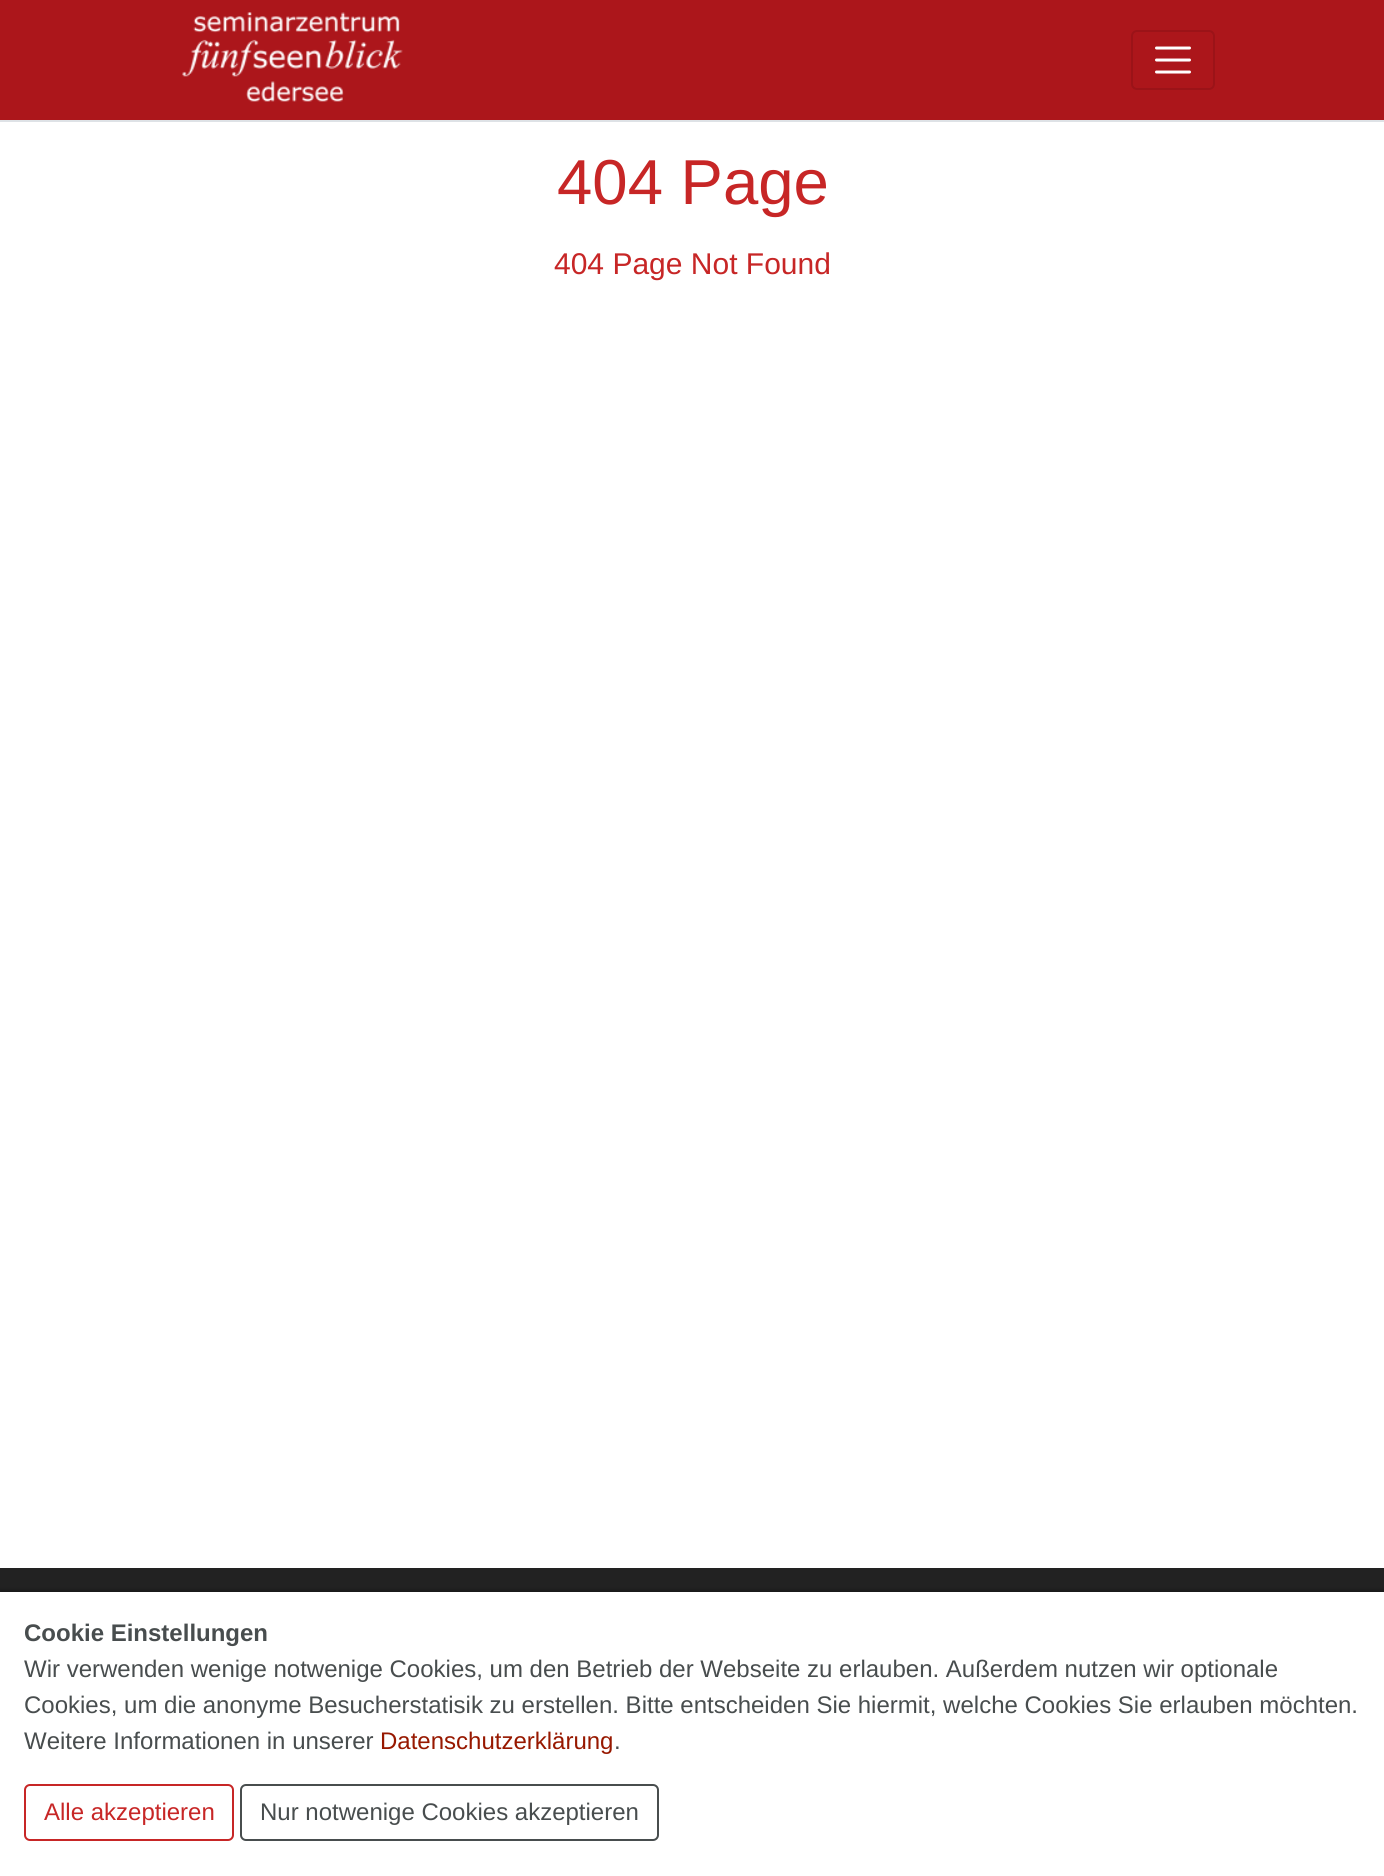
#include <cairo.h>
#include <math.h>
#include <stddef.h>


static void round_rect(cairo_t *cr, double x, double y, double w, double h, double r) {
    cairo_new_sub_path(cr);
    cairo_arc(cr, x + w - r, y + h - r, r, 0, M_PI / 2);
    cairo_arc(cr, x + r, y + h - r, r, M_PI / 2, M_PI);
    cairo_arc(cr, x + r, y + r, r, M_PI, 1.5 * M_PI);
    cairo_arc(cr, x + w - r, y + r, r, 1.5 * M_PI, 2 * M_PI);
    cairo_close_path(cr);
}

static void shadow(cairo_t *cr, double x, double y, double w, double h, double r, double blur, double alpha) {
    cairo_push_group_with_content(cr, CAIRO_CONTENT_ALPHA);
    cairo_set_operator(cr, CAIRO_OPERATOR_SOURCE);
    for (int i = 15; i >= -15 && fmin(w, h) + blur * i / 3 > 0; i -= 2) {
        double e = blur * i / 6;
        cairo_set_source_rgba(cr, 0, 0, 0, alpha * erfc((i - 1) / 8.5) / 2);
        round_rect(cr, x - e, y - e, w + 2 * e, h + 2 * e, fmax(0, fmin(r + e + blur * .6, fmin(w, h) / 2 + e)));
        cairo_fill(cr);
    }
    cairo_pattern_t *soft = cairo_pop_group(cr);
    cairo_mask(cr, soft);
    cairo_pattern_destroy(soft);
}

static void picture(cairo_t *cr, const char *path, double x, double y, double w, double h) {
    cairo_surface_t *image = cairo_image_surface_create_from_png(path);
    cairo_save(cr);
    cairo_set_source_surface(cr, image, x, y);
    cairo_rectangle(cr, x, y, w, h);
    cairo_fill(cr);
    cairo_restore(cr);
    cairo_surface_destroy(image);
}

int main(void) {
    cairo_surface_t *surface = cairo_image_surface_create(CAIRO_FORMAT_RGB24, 1384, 1876);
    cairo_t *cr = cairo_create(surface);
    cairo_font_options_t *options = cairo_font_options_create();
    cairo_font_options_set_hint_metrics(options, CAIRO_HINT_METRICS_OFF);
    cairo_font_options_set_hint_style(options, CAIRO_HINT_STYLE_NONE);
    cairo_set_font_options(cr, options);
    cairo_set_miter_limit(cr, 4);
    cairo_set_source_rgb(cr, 1, 1, 1);
    cairo_paint(cr);
    cairo_set_source_rgb(cr, 0.675, 0.086, 0.106);
    cairo_rectangle(cr, 0, 0, 1384, 120);
    cairo_fill(cr);
    cairo_set_source_rgb(cr, 0.871, 0.886, 0.902);
    cairo_rectangle(cr, 0, 120, 1384, 2);
    cairo_fill(cr);
    picture(cr, "img1.png", 182, 12, 221, 90);
    round_rect(cr, 1132, 31, 82, 58, 5);
    cairo_set_source_rgb(cr, 0.608, 0.078, 0.094);
    cairo_stroke(cr);
    cairo_new_path(cr);
    cairo_move_to(cr, 1156.5, 48);
    cairo_line_to(cr, 1189.5, 48);
    cairo_move_to(cr, 1156.5, 60);
    cairo_line_to(cr, 1189.5, 60);
    cairo_move_to(cr, 1156.5, 72);
    cairo_line_to(cr, 1189.5, 72);
    cairo_set_source_rgb(cr, 1, 1, 1);
    cairo_set_line_width(cr, 3);
    cairo_set_line_cap(cr, CAIRO_LINE_CAP_ROUND);
    cairo_stroke(cr);
    cairo_select_font_face(cr, "Liberation Sans", CAIRO_FONT_SLANT_NORMAL, CAIRO_FONT_WEIGHT_NORMAL);
    cairo_set_font_size(cr, 63.5);
    cairo_set_source_rgb(cr, 0.78, 0.149, 0.149);
    cairo_move_to(cr, 557, 204);
    cairo_show_text(cr, "404 Page");
    cairo_set_font_size(cr, 30);
    cairo_move_to(cr, 554, 274);
    cairo_show_text(cr, "404 Page Not Found");
    cairo_set_source_rgb(cr, 0.133, 0.133, 0.133);
    cairo_rectangle(cr, 0, 1568, 1384, 24);
    cairo_fill(cr);
    cairo_set_source_rgb(cr, 0, 0, 0);
    shadow(cr, 0, 1590, 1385, 285, 0, 2, 0.3);
    cairo_set_source_rgb(cr, 1, 1, 1);
    cairo_rectangle(cr, 0, 1592, 1384, 284);
    cairo_fill(cr);
    cairo_select_font_face(cr, "Liberation Sans", CAIRO_FONT_SLANT_NORMAL, CAIRO_FONT_WEIGHT_BOLD);
    cairo_set_font_size(cr, 24);
    cairo_set_source_rgb(cr, 0.282, 0.302, 0.306);
    cairo_move_to(cr, 24, 1641);
    cairo_show_text(cr, "Cookie Einstellungen");
    cairo_select_font_face(cr, "Liberation Sans", CAIRO_FONT_SLANT_NORMAL, CAIRO_FONT_WEIGHT_NORMAL);
    cairo_move_to(cr, 24, 1677);
    cairo_show_text(cr, "Wir verwenden wenige notwenige Cookies, um den Betrieb der Webseite zu erlauben. Außerdem nutzen wir optionale");
    cairo_move_to(cr, 24, 1713);
    cairo_show_text(cr, "Cookies, um die anonyme Besucherstatisik zu erstellen. Bitte entscheiden Sie hiermit, welche Cookies Sie erlauben möchten.");
    cairo_move_to(cr, 24, 1749);
    cairo_show_text(cr, "Weitere Informationen in unserer");
    cairo_set_source_rgb(cr, 0.592, 0.094, 0);
    cairo_move_to(cr, 380, 1749);
    cairo_show_text(cr, "Datenschutzerklärung");
    cairo_set_source_rgb(cr, 0.282, 0.302, 0.306);
    cairo_move_to(cr, 614, 1749);
    cairo_show_text(cr, ".");
    round_rect(cr, 25, 1785, 208, 55, 5);
    cairo_set_source_rgb(cr, 0.78, 0.149, 0.149);
    cairo_set_line_width(cr, 2);
    cairo_set_line_cap(cr, CAIRO_LINE_CAP_BUTT);
    cairo_stroke(cr);
    cairo_move_to(cr, 44, 1820);
    cairo_show_text(cr, "Alle akzeptieren");
    round_rect(cr, 241, 1785, 417, 55, 5);
    cairo_set_source_rgb(cr, 0.282, 0.302, 0.306);
    cairo_stroke(cr);
    cairo_move_to(cr, 260, 1820);
    cairo_show_text(cr, "Nur notwenige Cookies akzeptieren");
    cairo_surface_write_to_png(surface, "page.png");
    cairo_font_options_destroy(options);
    cairo_destroy(cr);
    cairo_surface_destroy(surface);
    return 0;
}
